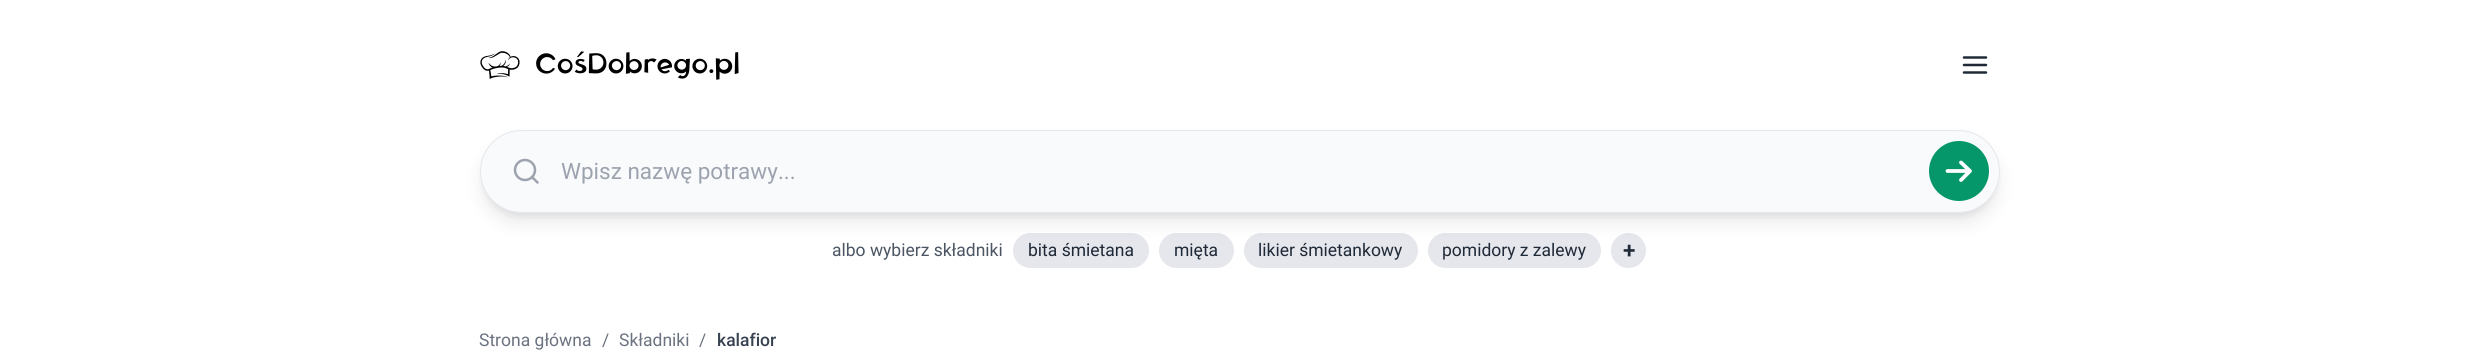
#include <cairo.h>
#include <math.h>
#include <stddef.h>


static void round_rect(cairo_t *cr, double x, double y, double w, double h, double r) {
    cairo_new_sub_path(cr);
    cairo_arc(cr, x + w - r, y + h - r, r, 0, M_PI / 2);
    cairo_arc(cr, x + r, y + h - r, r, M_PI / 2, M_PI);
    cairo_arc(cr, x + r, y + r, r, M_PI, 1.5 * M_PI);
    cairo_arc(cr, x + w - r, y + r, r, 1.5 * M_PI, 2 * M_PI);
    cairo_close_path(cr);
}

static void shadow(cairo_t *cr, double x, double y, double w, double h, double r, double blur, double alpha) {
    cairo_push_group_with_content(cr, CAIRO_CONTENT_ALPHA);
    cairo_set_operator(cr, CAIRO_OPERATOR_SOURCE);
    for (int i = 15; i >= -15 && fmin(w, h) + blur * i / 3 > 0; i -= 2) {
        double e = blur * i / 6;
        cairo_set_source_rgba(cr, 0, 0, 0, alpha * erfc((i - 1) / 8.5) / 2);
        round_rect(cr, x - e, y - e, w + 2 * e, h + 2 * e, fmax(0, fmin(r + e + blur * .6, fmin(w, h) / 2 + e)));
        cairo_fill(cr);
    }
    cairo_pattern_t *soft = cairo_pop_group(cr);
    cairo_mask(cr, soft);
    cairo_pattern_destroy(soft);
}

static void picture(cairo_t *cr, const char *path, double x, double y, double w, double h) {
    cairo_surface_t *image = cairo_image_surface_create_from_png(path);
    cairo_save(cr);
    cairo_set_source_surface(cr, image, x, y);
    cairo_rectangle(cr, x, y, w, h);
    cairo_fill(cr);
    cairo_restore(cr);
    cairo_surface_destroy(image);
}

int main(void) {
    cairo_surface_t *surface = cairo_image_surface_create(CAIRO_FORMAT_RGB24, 2478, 351);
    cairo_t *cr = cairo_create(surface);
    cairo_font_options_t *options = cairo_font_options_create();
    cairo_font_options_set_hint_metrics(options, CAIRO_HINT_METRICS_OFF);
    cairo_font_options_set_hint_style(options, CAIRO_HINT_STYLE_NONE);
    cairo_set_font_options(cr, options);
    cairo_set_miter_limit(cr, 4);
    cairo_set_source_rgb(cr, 1, 1, 1);
    cairo_paint(cr);
    picture(cr, "img1.png", 480, 51, 40, 28);
    picture(cr, "img2.png", 536, 51, 203, 29);
    cairo_new_path(cr);
    cairo_move_to(cr, 1964, 65);
    cairo_line_to(cr, 1986, 65);
    cairo_move_to(cr, 1964, 57.5);
    cairo_line_to(cr, 1986, 57.5);
    cairo_move_to(cr, 1964, 72.5);
    cairo_line_to(cr, 1986, 72.5);
    cairo_set_source_rgb(cr, 0.122, 0.161, 0.216);
    cairo_set_line_width(cr, 2.5);
    cairo_set_line_cap(cr, CAIRO_LINE_CAP_ROUND);
    cairo_set_line_join(cr, CAIRO_LINE_JOIN_ROUND);
    cairo_stroke(cr);
    cairo_set_source_rgb(cr, 0, 0, 0);
    shadow(cr, 485, 140, 1510, 73, 36.5, 4, 0.1);
    cairo_set_source_rgb(cr, 0.898, 0.906, 0.922);
    round_rect(cr, 1013, 233, 136, 35, 17.5);
    cairo_fill(cr);
    round_rect(cr, 1159, 233, 75, 35, 17.5);
    cairo_fill(cr);
    round_rect(cr, 1244, 233, 174, 35, 17.5);
    cairo_fill(cr);
    round_rect(cr, 1428, 233, 173, 35, 17.5);
    cairo_fill(cr);
    cairo_arc(cr, 1628.5, 250.5, 17.5, 0, 2 * M_PI);
    cairo_fill(cr);
    cairo_set_source_rgb(cr, 0, 0, 0);
    shadow(cr, 484, 146, 1512, 75, 37.5, 9.5, 0.1);
    cairo_set_source_rgb(cr, 0.976, 0.98, 0.984);
    round_rect(cr, 480.5, 130.5, 1519, 82, 41);
    cairo_fill_preserve(cr);
    cairo_set_source_rgb(cr, 0.898, 0.906, 0.922);
    cairo_set_line_width(cr, 1);
    cairo_set_line_cap(cr, CAIRO_LINE_CAP_BUTT);
    cairo_set_line_join(cr, CAIRO_LINE_JOIN_MITER);
    cairo_stroke(cr);
    cairo_arc(cr, 525, 170, 10, 0, 2 * M_PI);
    cairo_set_source_rgb(cr, 0.612, 0.639, 0.686);
    cairo_set_line_width(cr, 2.5);
    cairo_stroke(cr);
    cairo_new_path(cr);
    cairo_move_to(cr, 537.5, 182.5);
    cairo_line_to(cr, 532, 177);
    cairo_set_line_cap(cr, CAIRO_LINE_CAP_ROUND);
    cairo_set_line_join(cr, CAIRO_LINE_JOIN_ROUND);
    cairo_stroke(cr);
    cairo_select_font_face(cr, "Roboto", CAIRO_FONT_SLANT_NORMAL, CAIRO_FONT_WEIGHT_NORMAL);
    cairo_set_font_size(cr, 22.5);
    cairo_move_to(cr, 561, 179);
    cairo_show_text(cr, "Wpisz nazwę potrawy...");
    cairo_set_source_rgb(cr, 0.02, 0.588, 0.412);
    cairo_new_path(cr);
    cairo_arc(cr, 1959, 171, 30, 0, 2 * M_PI);
    cairo_fill(cr);
    cairo_new_path(cr);
    cairo_move_to(cr, 1961, 162.5);
    cairo_line_to(cr, 1970, 171);
    cairo_move_to(cr, 1970, 171);
    cairo_line_to(cr, 1961, 180);
    cairo_move_to(cr, 1970, 171);
    cairo_line_to(cr, 1947.5, 171);
    cairo_set_source_rgb(cr, 1, 1, 1);
    cairo_set_line_width(cr, 3.8);
    cairo_stroke(cr);
    cairo_set_font_size(cr, 17.5);
    cairo_set_source_rgb(cr, 0.294, 0.333, 0.388);
    cairo_move_to(cr, 832, 256);
    cairo_show_text(cr, "albo wybierz składniki");
    cairo_set_source_rgb(cr, 0.122, 0.161, 0.216);
    cairo_move_to(cr, 1028, 256);
    cairo_show_text(cr, "bita śmietana");
    cairo_move_to(cr, 1174, 256);
    cairo_show_text(cr, "mięta");
    cairo_move_to(cr, 1258, 256);
    cairo_show_text(cr, "likier śmietankowy");
    cairo_move_to(cr, 1442, 256);
    cairo_show_text(cr, "pomidory z zalewy");
    cairo_select_font_face(cr, "Roboto SemiBold", CAIRO_FONT_SLANT_NORMAL, CAIRO_FONT_WEIGHT_NORMAL);
    cairo_set_font_size(cr, 22.5);
    cairo_move_to(cr, 1623, 258);
    cairo_show_text(cr, "+");
    cairo_select_font_face(cr, "Roboto", CAIRO_FONT_SLANT_NORMAL, CAIRO_FONT_WEIGHT_NORMAL);
    cairo_set_font_size(cr, 17.5);
    cairo_set_source_rgb(cr, 0.42, 0.447, 0.502);
    cairo_move_to(cr, 479, 346);
    cairo_show_text(cr, "Strona główna");
    cairo_move_to(cr, 602, 346);
    cairo_show_text(cr, "/");
    cairo_move_to(cr, 619, 346);
    cairo_show_text(cr, "Składniki");
    cairo_move_to(cr, 699, 346);
    cairo_show_text(cr, "/");
    cairo_select_font_face(cr, "Roboto Medium", CAIRO_FONT_SLANT_NORMAL, CAIRO_FONT_WEIGHT_NORMAL);
    cairo_set_source_rgb(cr, 0.216, 0.255, 0.318);
    cairo_move_to(cr, 717, 346);
    cairo_show_text(cr, "kalafior");
    cairo_surface_write_to_png(surface, "page.png");
    cairo_font_options_destroy(options);
    cairo_destroy(cr);
    cairo_surface_destroy(surface);
    return 0;
}
